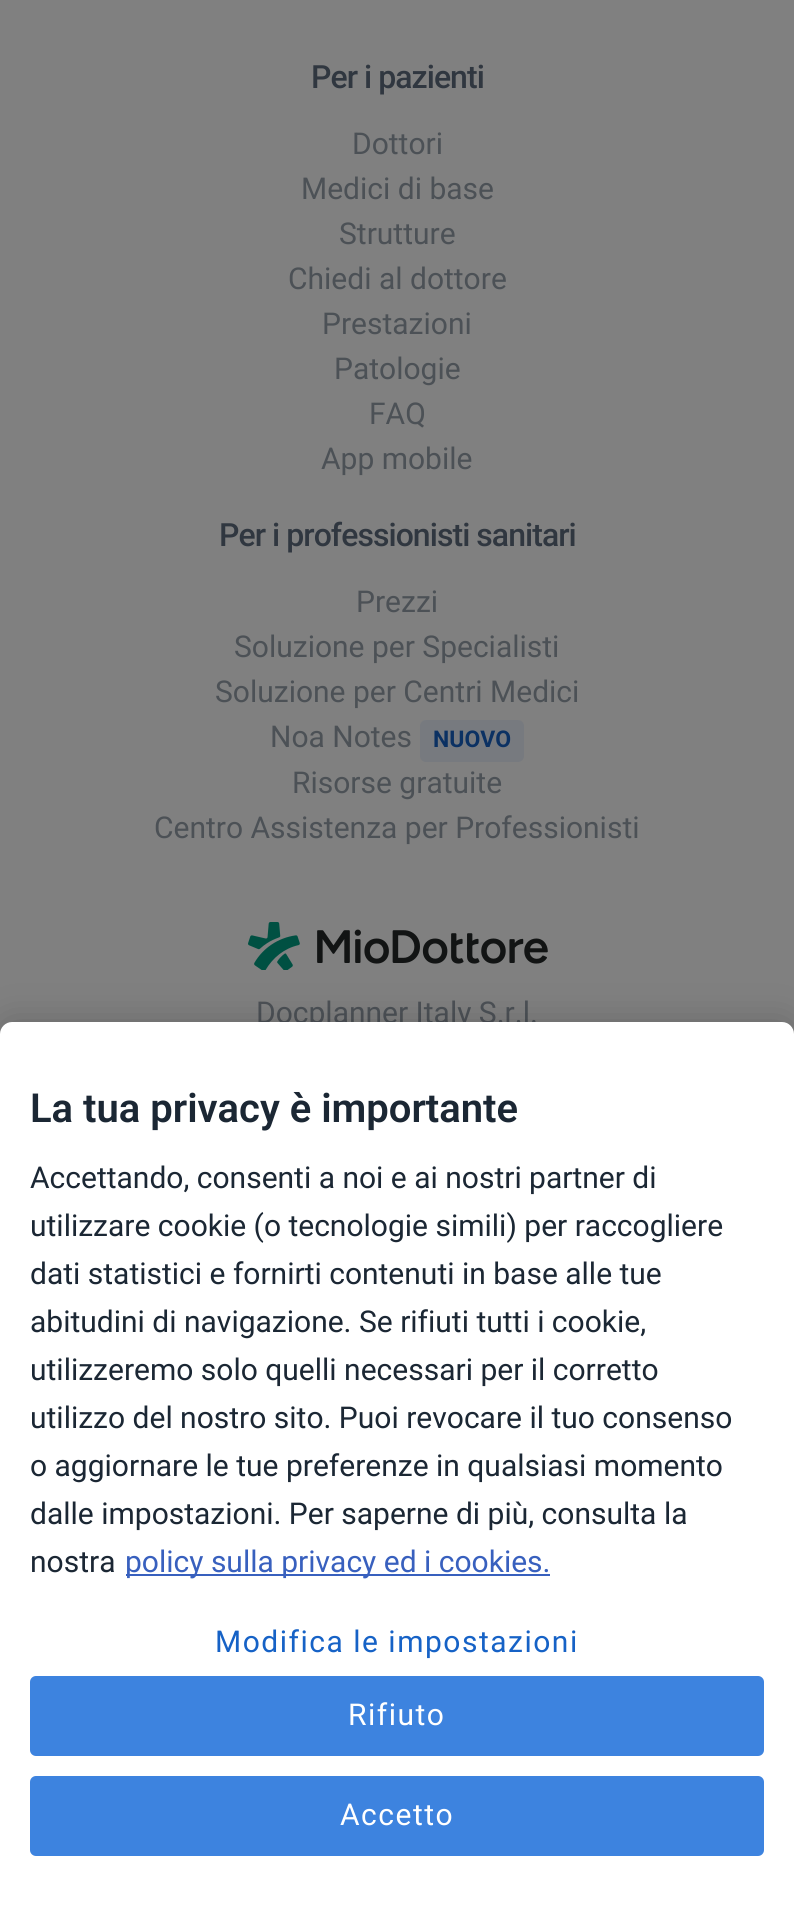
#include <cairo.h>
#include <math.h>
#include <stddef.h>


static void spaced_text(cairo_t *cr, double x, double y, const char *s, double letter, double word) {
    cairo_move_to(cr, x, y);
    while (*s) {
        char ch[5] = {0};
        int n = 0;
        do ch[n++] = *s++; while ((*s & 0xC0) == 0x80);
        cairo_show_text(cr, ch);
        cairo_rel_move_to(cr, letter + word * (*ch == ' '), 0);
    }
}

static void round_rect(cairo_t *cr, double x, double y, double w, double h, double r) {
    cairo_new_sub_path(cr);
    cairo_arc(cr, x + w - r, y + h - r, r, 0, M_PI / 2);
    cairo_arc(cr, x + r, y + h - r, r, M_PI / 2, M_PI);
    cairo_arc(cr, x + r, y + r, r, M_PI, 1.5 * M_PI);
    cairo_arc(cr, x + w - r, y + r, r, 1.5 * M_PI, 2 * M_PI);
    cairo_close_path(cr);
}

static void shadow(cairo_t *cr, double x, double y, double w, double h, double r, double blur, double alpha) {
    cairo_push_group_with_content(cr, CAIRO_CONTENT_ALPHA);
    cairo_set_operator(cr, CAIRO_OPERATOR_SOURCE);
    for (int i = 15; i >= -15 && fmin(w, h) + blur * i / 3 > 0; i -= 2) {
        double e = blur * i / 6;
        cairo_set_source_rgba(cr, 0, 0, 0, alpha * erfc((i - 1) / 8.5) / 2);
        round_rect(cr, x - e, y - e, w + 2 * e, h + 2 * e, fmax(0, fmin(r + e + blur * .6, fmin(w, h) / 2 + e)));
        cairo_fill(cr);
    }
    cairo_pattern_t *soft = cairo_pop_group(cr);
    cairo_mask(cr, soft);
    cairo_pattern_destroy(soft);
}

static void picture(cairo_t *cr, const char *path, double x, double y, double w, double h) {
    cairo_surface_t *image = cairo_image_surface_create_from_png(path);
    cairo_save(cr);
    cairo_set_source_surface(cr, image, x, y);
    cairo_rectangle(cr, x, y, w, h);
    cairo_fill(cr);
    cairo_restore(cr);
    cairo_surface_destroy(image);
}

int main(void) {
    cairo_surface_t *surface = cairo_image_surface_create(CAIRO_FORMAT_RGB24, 794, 1906);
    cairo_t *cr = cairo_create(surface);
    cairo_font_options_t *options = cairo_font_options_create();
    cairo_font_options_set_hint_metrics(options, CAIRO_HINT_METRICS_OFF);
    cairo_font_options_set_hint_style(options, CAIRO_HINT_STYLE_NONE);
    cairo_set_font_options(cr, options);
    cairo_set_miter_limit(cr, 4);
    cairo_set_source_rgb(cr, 0.502, 0.502, 0.502);
    cairo_paint(cr);
    cairo_select_font_face(cr, "Roboto Medium", CAIRO_FONT_SLANT_NORMAL, CAIRO_FONT_WEIGHT_NORMAL);
    cairo_set_font_size(cr, 32);
    cairo_set_source_rgb(cr, 0.188, 0.216, 0.251);
    spaced_text(cr, 311, 88, "Per i pazienti", -0.95, 0);
    cairo_select_font_face(cr, "Roboto", CAIRO_FONT_SLANT_NORMAL, CAIRO_FONT_WEIGHT_NORMAL);
    cairo_set_font_size(cr, 30);
    cairo_set_source_rgb(cr, 0.298, 0.318, 0.337);
    cairo_move_to(cr, 352, 154);
    cairo_show_text(cr, "Dottori");
    cairo_move_to(cr, 301, 199);
    cairo_show_text(cr, "Medici di base");
    cairo_move_to(cr, 339, 244);
    cairo_show_text(cr, "Strutture");
    cairo_move_to(cr, 288, 289);
    cairo_show_text(cr, "Chiedi al dottore");
    cairo_move_to(cr, 322, 334);
    cairo_show_text(cr, "Prestazioni");
    cairo_move_to(cr, 334, 379);
    cairo_show_text(cr, "Patologie");
    cairo_move_to(cr, 369, 424);
    cairo_show_text(cr, "FAQ");
    cairo_move_to(cr, 321, 469);
    cairo_show_text(cr, "App mobile");
    cairo_select_font_face(cr, "Roboto Medium", CAIRO_FONT_SLANT_NORMAL, CAIRO_FONT_WEIGHT_NORMAL);
    cairo_set_font_size(cr, 32);
    cairo_set_source_rgb(cr, 0.188, 0.216, 0.251);
    spaced_text(cr, 219, 546, "Per i professionisti sanitari", -0.95, 0);
    cairo_select_font_face(cr, "Roboto", CAIRO_FONT_SLANT_NORMAL, CAIRO_FONT_WEIGHT_NORMAL);
    cairo_set_font_size(cr, 30);
    cairo_set_source_rgb(cr, 0.298, 0.318, 0.337);
    cairo_move_to(cr, 356, 612);
    cairo_show_text(cr, "Prezzi");
    cairo_move_to(cr, 234, 657);
    cairo_show_text(cr, "Soluzione per Specialisti");
    cairo_move_to(cr, 215, 702);
    cairo_show_text(cr, "Soluzione per Centri Medici");
    cairo_move_to(cr, 270, 747);
    cairo_show_text(cr, "Noa Notes");
    cairo_set_source_rgb(cr, 0.467, 0.478, 0.498);
    round_rect(cr, 420, 720, 104, 42, 6);
    cairo_fill(cr);
    cairo_select_font_face(cr, "Roboto", CAIRO_FONT_SLANT_NORMAL, CAIRO_FONT_WEIGHT_BOLD);
    cairo_set_font_size(cr, 23);
    cairo_set_source_rgb(cr, 0.043, 0.192, 0.388);
    cairo_move_to(cr, 433, 747);
    cairo_show_text(cr, "NUOVO");
    cairo_select_font_face(cr, "Roboto", CAIRO_FONT_SLANT_NORMAL, CAIRO_FONT_WEIGHT_NORMAL);
    cairo_set_font_size(cr, 30);
    cairo_set_source_rgb(cr, 0.298, 0.318, 0.337);
    cairo_move_to(cr, 292, 793);
    cairo_show_text(cr, "Risorse gratuite");
    cairo_move_to(cr, 154, 838);
    cairo_show_text(cr, "Centro Assistenza per Professionisti");
    picture(cr, "img1.png", 248, 922, 300, 48);
    cairo_move_to(cr, 256, 1023);
    cairo_show_text(cr, "Docplanner Italy S.r.l.");
    cairo_set_source_rgb(cr, 0, 0, 0);
    shadow(cr, 0, 1022, 794, 884, 12, 18, 0.2);
    cairo_set_source_rgb(cr, 1, 1, 1);
    cairo_new_path(cr);
    cairo_move_to(cr, 12, 1022);
    cairo_line_to(cr, 782, 1022);
    cairo_curve_to(cr, 788.5, 1022, 794, 1027.5, 794, 1034);
    cairo_line_to(cr, 794, 1906);
    cairo_line_to(cr, 0, 1906);
    cairo_line_to(cr, 0, 1034);
    cairo_curve_to(cr, 0, 1027.5, 5.5, 1022, 12, 1022);
    cairo_close_path(cr);
    cairo_fill(cr);
    cairo_select_font_face(cr, "Roboto SemiBold", CAIRO_FONT_SLANT_NORMAL, CAIRO_FONT_WEIGHT_NORMAL);
    cairo_set_font_size(cr, 40);
    cairo_set_source_rgb(cr, 0.106, 0.153, 0.204);
    cairo_move_to(cr, 30, 1122);
    cairo_show_text(cr, "La tua privacy è importante");
    cairo_select_font_face(cr, "Roboto", CAIRO_FONT_SLANT_NORMAL, CAIRO_FONT_WEIGHT_NORMAL);
    cairo_set_font_size(cr, 30);
    cairo_move_to(cr, 30, 1188);
    cairo_show_text(cr, "Accettando, consenti a noi e ai nostri partner di");
    cairo_move_to(cr, 30, 1236);
    cairo_show_text(cr, "utilizzare cookie (o tecnologie simili) per raccogliere");
    cairo_move_to(cr, 30, 1284);
    cairo_show_text(cr, "dati statistici e fornirti contenuti in base alle tue");
    cairo_move_to(cr, 30, 1332);
    cairo_show_text(cr, "abitudini di navigazione. Se rifiuti tutti i cookie,");
    cairo_move_to(cr, 30, 1380);
    cairo_show_text(cr, "utilizzeremo solo quelli necessari per il corretto");
    cairo_move_to(cr, 30, 1428);
    cairo_show_text(cr, "utilizzo del nostro sito. Puoi revocare il tuo consenso");
    cairo_move_to(cr, 30, 1476);
    cairo_show_text(cr, "o aggiornare le tue preferenze in qualsiasi momento");
    cairo_move_to(cr, 30, 1524);
    cairo_show_text(cr, "dalle impostazioni. Per saperne di più, consulta la");
    cairo_move_to(cr, 30, 1572);
    cairo_show_text(cr, "nostra");
    cairo_set_source_rgb(cr, 0.22, 0.376, 0.745);
    cairo_rectangle(cr, 126, 1574, 424, 2);
    cairo_fill(cr);
    cairo_move_to(cr, 125, 1572);
    cairo_show_text(cr, "policy sulla privacy ed i cookies.");
    cairo_set_source_rgb(cr, 0.086, 0.384, 0.776);
    spaced_text(cr, 215, 1652, "Modifica le impostazioni", 1.5, 0);
    cairo_set_source_rgb(cr, 0.239, 0.514, 0.875);
    round_rect(cr, 31, 1677, 732, 78, 5);
    cairo_fill_preserve(cr);
    cairo_stroke(cr);
    cairo_set_source_rgb(cr, 1, 1, 1);
    spaced_text(cr, 348, 1725, "Rifiuto", 1.5, 0);
    cairo_set_source_rgb(cr, 0.239, 0.514, 0.875);
    round_rect(cr, 31, 1777, 732, 78, 5);
    cairo_fill_preserve(cr);
    cairo_stroke(cr);
    cairo_set_source_rgb(cr, 1, 1, 1);
    spaced_text(cr, 340, 1825, "Accetto", 1.5, 0);
    cairo_surface_write_to_png(surface, "page.png");
    cairo_font_options_destroy(options);
    cairo_destroy(cr);
    cairo_surface_destroy(surface);
    return 0;
}
